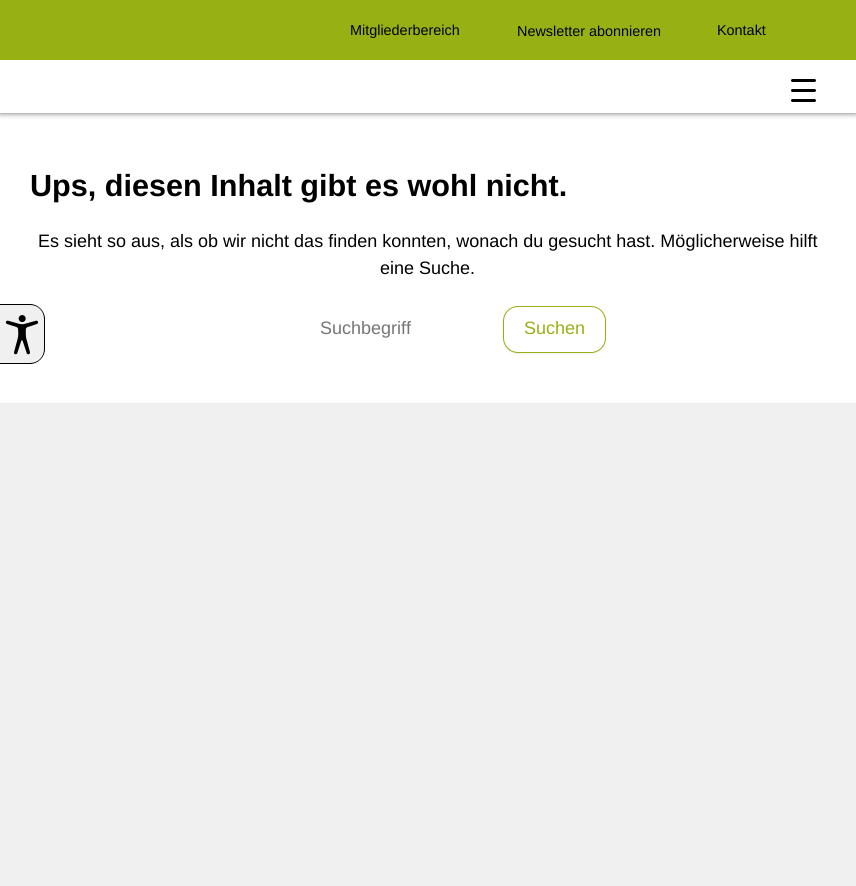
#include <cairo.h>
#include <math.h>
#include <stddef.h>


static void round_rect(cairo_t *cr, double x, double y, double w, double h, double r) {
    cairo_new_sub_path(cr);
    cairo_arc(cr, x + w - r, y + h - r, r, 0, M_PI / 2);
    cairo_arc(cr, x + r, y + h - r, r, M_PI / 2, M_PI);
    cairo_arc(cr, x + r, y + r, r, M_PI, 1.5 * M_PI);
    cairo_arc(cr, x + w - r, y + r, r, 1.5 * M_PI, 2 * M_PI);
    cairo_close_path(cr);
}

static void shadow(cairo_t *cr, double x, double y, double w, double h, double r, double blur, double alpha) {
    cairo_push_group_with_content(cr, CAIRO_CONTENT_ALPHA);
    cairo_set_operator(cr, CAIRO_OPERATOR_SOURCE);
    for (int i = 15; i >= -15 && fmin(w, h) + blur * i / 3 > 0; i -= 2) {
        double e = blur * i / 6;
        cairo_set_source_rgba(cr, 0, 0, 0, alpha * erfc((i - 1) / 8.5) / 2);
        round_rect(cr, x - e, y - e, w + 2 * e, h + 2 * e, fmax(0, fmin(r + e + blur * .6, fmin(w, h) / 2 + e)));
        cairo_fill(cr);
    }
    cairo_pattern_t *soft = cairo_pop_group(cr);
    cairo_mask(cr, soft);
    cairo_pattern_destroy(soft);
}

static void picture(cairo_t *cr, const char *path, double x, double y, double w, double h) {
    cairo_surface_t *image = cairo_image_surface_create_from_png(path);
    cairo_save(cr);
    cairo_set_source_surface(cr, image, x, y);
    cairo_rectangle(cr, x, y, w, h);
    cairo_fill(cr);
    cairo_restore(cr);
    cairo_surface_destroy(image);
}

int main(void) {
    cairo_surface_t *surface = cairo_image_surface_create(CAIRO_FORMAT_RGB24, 856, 886);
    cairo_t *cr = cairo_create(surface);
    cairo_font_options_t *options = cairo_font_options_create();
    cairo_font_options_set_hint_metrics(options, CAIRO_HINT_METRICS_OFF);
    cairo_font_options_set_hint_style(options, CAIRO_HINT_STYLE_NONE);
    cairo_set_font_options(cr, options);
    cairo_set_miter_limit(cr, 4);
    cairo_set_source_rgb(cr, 1, 1, 1);
    cairo_paint(cr);
    cairo_set_source_rgb(cr, 0, 0, 0);
    shadow(cr, 0, 0, 856, 113, 0, 3, 0.6);
    cairo_set_source_rgb(cr, 1, 1, 1);
    cairo_rectangle(cr, 0, 60, 856, 53);
    cairo_fill(cr);
    cairo_set_source_rgb(cr, 0.592, 0.694, 0.082);
    cairo_rectangle(cr, 0, 0, 856, 60);
    cairo_fill(cr);
    cairo_select_font_face(cr, "Liberation Sans", CAIRO_FONT_SLANT_NORMAL, CAIRO_FONT_WEIGHT_NORMAL);
    cairo_set_font_size(cr, 14.4);
    cairo_set_source_rgb(cr, 0, 0, 0);
    cairo_move_to(cr, 350, 35);
    cairo_show_text(cr, "Mitgliederbereich");
    cairo_move_to(cr, 517, 36);
    cairo_show_text(cr, "Newsletter abonnieren");
    cairo_move_to(cr, 717, 35);
    cairo_show_text(cr, "Kontakt");
    round_rect(cr, 791, 79, 25, 3, 1.5);
    cairo_fill(cr);
    round_rect(cr, 791, 89, 25, 3, 1.5);
    cairo_fill(cr);
    round_rect(cr, 791, 99, 25, 3, 1.5);
    cairo_fill(cr);
    cairo_set_source_rgb(cr, 0.941, 0.941, 0.941);
    cairo_new_path(cr);
    cairo_move_to(cr, -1, 304);
    cairo_line_to(cr, 30, 304);
    cairo_curve_to(cr, 38.5, 304, 45, 310.5, 45, 319);
    cairo_line_to(cr, 45, 349);
    cairo_curve_to(cr, 45, 357.5, 38.5, 364, 30, 364);
    cairo_line_to(cr, -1, 364);
    cairo_close_path(cr);
    cairo_fill(cr);
    cairo_set_source_rgb(cr, 0, 0, 0);
    cairo_set_fill_rule(cr, CAIRO_FILL_RULE_EVEN_ODD);
    cairo_new_path(cr);
    cairo_move_to(cr, -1, 304);
    cairo_line_to(cr, 30, 304);
    cairo_curve_to(cr, 38, 304, 45, 311, 45, 319);
    cairo_line_to(cr, 45, 349);
    cairo_curve_to(cr, 45, 357, 38, 364, 30, 364);
    cairo_line_to(cr, -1, 364);
    cairo_close_path(cr);
    cairo_move_to(cr, -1, 305);
    cairo_line_to(cr, 30, 305);
    cairo_curve_to(cr, 38, 305, 44, 311, 44, 319);
    cairo_line_to(cr, 44, 349);
    cairo_curve_to(cr, 44, 357, 38, 363, 30, 363);
    cairo_line_to(cr, -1, 363);
    cairo_close_path(cr);
    cairo_fill(cr);
    picture(cr, "img1.png", 5, 315, 34, 40);
    cairo_select_font_face(cr, "Liberation Sans", CAIRO_FONT_SLANT_NORMAL, CAIRO_FONT_WEIGHT_BOLD);
    cairo_set_font_size(cr, 30.6);
    cairo_move_to(cr, 30, 196);
    cairo_show_text(cr, "Ups, diesen Inhalt gibt es wohl nicht.");
    cairo_select_font_face(cr, "Liberation Sans", CAIRO_FONT_SLANT_NORMAL, CAIRO_FONT_WEIGHT_NORMAL);
    cairo_set_font_size(cr, 18);
    cairo_move_to(cr, 38, 247);
    cairo_show_text(cr, "Es sieht so aus, als ob wir nicht das finden konnten, wonach du gesucht hast. Möglicherweise hilft");
    cairo_move_to(cr, 380, 274);
    cairo_show_text(cr, "eine Suche.");
    cairo_set_source_rgb(cr, 0.459, 0.459, 0.459);
    cairo_move_to(cr, 320, 334);
    cairo_show_text(cr, "Suchbegriff");
    cairo_set_source_rgb(cr, 0.251, 0.251, 0.251);
    shadow(cr, 503, 307, 103, 47, 15, 1, 0.1);
    cairo_set_source_rgb(cr, 1, 1, 1);
    round_rect(cr, 503.5, 306.5, 102, 46, 14.5);
    cairo_fill_preserve(cr);
    cairo_set_source_rgb(cr, 0.592, 0.694, 0.082);
    cairo_set_line_width(cr, 1);
    cairo_stroke(cr);
    cairo_move_to(cr, 524, 334);
    cairo_show_text(cr, "Suchen");
    cairo_set_source_rgb(cr, 0.941, 0.941, 0.941);
    cairo_rectangle(cr, 0, 404, 856, 482);
    cairo_fill(cr);
    cairo_set_source_rgb(cr, 0.929, 0.929, 0.929);
    cairo_rectangle(cr, 0, 403, 856, 1);
    cairo_fill(cr);
    cairo_surface_write_to_png(surface, "page.png");
    cairo_font_options_destroy(options);
    cairo_destroy(cr);
    cairo_surface_destroy(surface);
    return 0;
}
